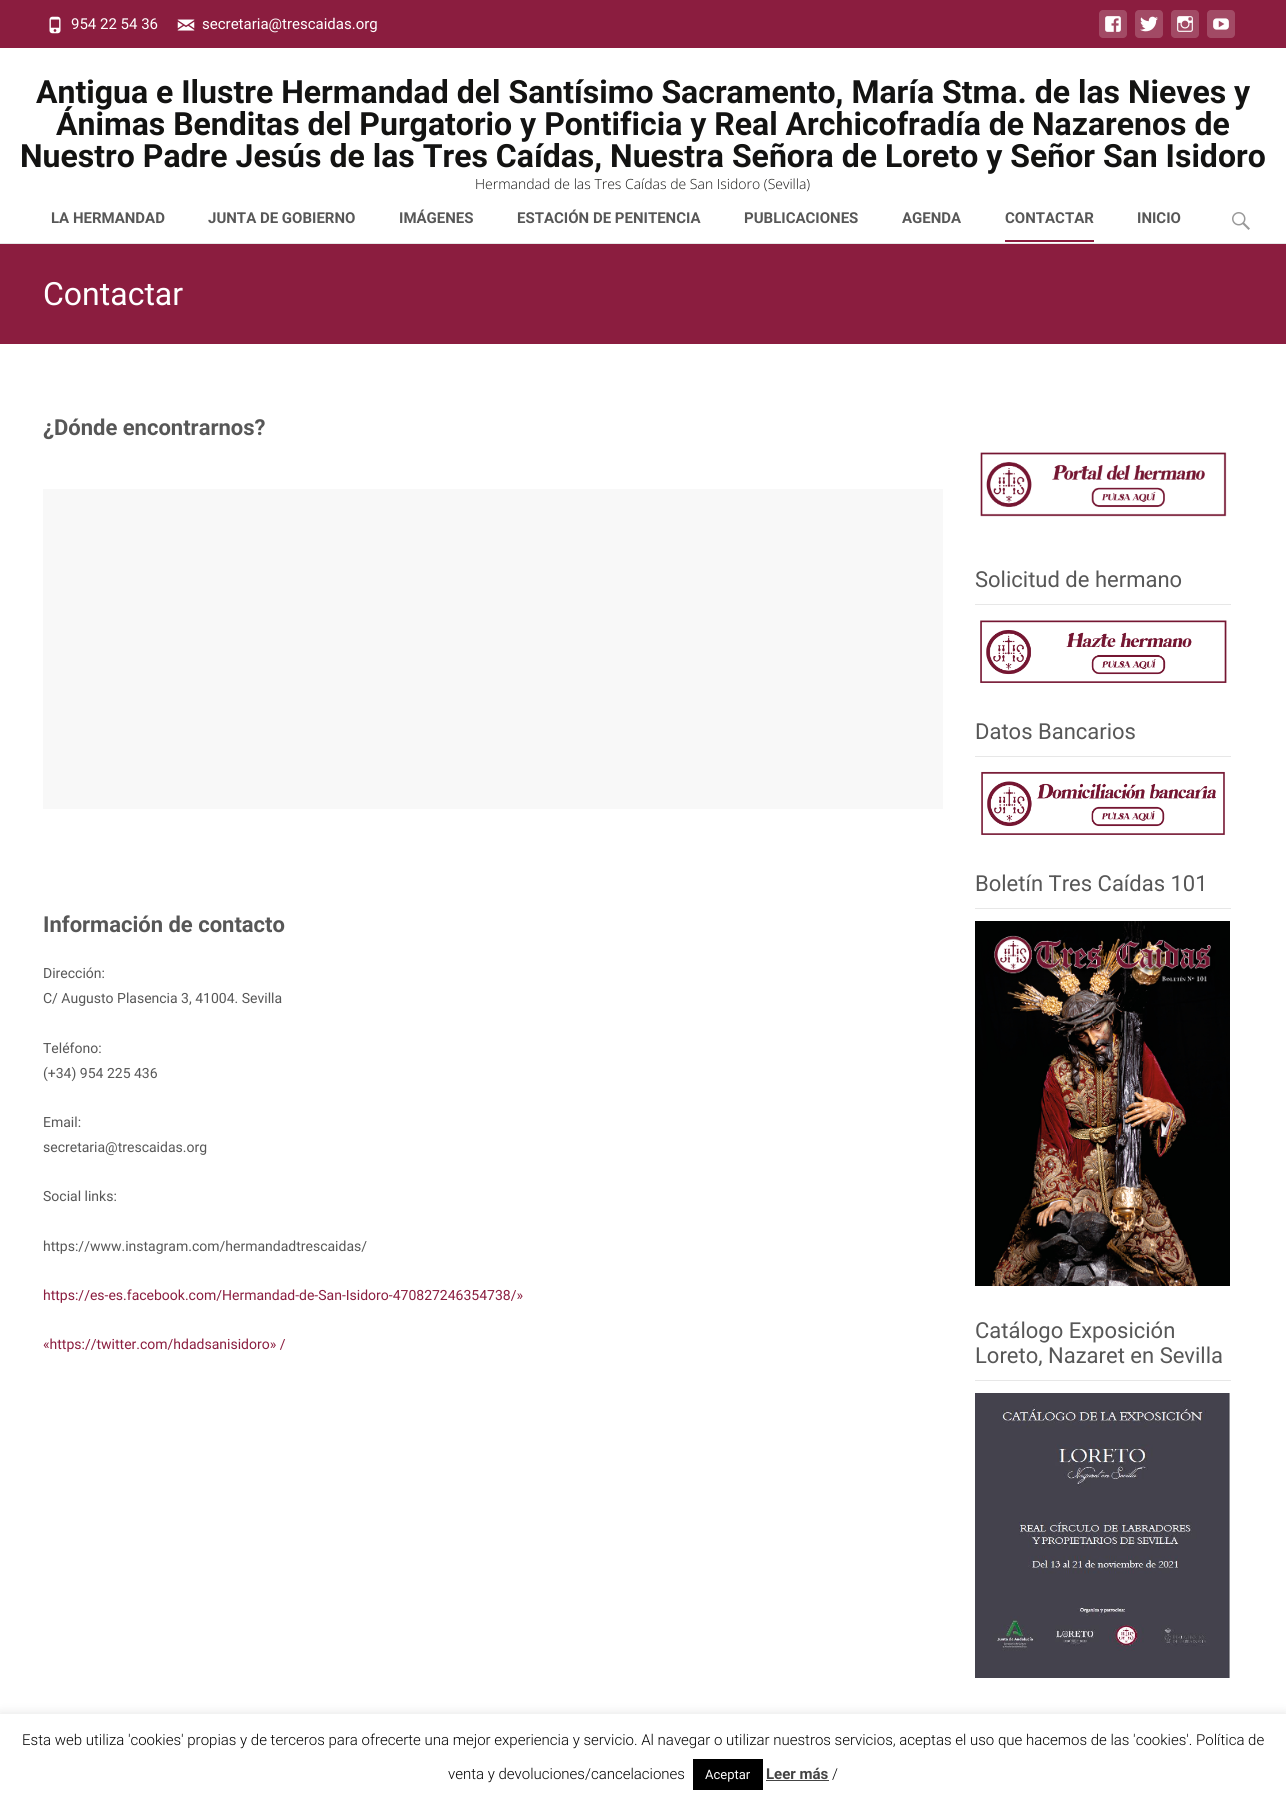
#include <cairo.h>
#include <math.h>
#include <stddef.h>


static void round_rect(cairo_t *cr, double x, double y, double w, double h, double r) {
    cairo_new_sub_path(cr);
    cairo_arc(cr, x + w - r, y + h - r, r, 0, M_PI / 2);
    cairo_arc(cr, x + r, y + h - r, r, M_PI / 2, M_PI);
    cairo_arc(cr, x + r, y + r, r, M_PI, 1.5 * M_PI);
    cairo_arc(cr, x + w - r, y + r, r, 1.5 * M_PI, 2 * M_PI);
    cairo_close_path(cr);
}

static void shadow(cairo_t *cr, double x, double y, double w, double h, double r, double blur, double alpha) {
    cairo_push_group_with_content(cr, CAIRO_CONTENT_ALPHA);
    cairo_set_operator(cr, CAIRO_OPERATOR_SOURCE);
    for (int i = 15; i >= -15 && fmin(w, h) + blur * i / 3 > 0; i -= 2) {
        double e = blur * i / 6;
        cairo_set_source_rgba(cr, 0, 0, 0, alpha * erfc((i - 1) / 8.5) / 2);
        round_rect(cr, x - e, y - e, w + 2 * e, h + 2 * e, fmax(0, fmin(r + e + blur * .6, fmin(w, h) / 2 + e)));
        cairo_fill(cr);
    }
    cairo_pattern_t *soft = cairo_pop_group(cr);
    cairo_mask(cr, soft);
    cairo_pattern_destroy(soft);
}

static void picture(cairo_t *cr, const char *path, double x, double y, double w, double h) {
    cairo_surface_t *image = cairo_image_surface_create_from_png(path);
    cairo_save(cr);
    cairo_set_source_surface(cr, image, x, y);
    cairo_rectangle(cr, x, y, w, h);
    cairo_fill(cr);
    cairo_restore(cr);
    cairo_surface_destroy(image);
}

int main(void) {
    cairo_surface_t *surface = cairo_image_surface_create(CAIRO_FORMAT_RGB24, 1286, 1802);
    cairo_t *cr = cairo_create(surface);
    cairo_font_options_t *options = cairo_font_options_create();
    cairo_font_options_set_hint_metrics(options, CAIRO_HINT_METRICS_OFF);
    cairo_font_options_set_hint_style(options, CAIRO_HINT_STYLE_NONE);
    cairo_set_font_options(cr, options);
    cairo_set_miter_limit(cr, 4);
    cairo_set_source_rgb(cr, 1, 1, 1);
    cairo_paint(cr);
    cairo_set_source_rgb(cr, 0.545, 0.114, 0.247);
    cairo_rectangle(cr, 0, 0, 1286, 48);
    cairo_fill(cr);
    picture(cr, "img1.png", 49, 16, 12, 18);
    cairo_select_font_face(cr, "Roboto", CAIRO_FONT_SLANT_NORMAL, CAIRO_FONT_WEIGHT_NORMAL);
    cairo_set_font_size(cr, 15);
    cairo_set_source_rgb(cr, 1, 1, 1);
    cairo_move_to(cr, 71, 29);
    cairo_show_text(cr, "954 22 54 36");
    picture(cr, "img2.png", 177, 19, 18, 12);
    cairo_move_to(cr, 202, 29);
    cairo_show_text(cr, "secretaria@trescaidas.org");
    cairo_set_source_rgb(cr, 0.635, 0.29, 0.396);
    round_rect(cr, 1099, 10, 28, 28, 4);
    cairo_fill(cr);
    picture(cr, "img3.png", 1105, 16, 16, 16);
    round_rect(cr, 1135, 10, 28, 28, 4);
    cairo_fill(cr);
    picture(cr, "img4.png", 1140, 16, 18, 16);
    round_rect(cr, 1171, 10, 28, 28, 4);
    cairo_fill(cr);
    picture(cr, "img5.png", 1177, 16, 16, 16);
    round_rect(cr, 1207, 10, 28, 28, 4);
    cairo_fill(cr);
    picture(cr, "img6.png", 1213, 18, 16, 12);
    cairo_set_source_rgb(cr, 0.906, 0.906, 0.906);
    cairo_rectangle(cr, 0, 243, 1286, 1);
    cairo_fill(cr);
    cairo_select_font_face(cr, "Roboto", CAIRO_FONT_SLANT_NORMAL, CAIRO_FONT_WEIGHT_BOLD);
    cairo_set_font_size(cr, 32);
    cairo_set_source_rgb(cr, 0.078, 0.078, 0.071);
    cairo_move_to(cr, 36, 103);
    cairo_show_text(cr, "Antigua e Ilustre Hermandad del Santísimo Sacramento, María Stma. de las Nieves y");
    cairo_move_to(cr, 56, 135);
    cairo_show_text(cr, "Ánimas Benditas del Purgatorio y Pontificia y Real Archicofradía de Nazarenos de");
    cairo_move_to(cr, 20, 167);
    cairo_show_text(cr, "Nuestro Padre Jesús de las Tres Caídas, Nuestra Señora de Loreto y Señor San Isidoro");
    cairo_select_font_face(cr, "Open Sans Light", CAIRO_FONT_SLANT_NORMAL, CAIRO_FONT_WEIGHT_NORMAL);
    cairo_set_font_size(cr, 14);
    cairo_move_to(cr, 475, 189);
    cairo_show_text(cr, "Hermandad de las Tres Caídas de San Isidoro (Sevilla)");
    cairo_select_font_face(cr, "Roboto", CAIRO_FONT_SLANT_NORMAL, CAIRO_FONT_WEIGHT_BOLD);
    cairo_set_font_size(cr, 15);
    cairo_set_source_rgb(cr, 0.341, 0.341, 0.341);
    cairo_move_to(cr, 51, 223);
    cairo_show_text(cr, "LA HERMANDAD");
    cairo_move_to(cr, 208, 223);
    cairo_show_text(cr, "JUNTA DE GOBIERNO");
    cairo_move_to(cr, 399, 223);
    cairo_show_text(cr, "IMÁGENES");
    cairo_move_to(cr, 517, 223);
    cairo_show_text(cr, "ESTACIÓN DE PENITENCIA");
    cairo_move_to(cr, 744, 223);
    cairo_show_text(cr, "PUBLICACIONES");
    cairo_move_to(cr, 902, 223);
    cairo_show_text(cr, "AGENDA");
    cairo_move_to(cr, 1005, 223);
    cairo_show_text(cr, "CONTACTAR");
    cairo_set_source_rgb(cr, 0.545, 0.114, 0.247);
    cairo_rectangle(cr, 1005, 240, 89, 2);
    cairo_fill(cr);
    cairo_set_source_rgb(cr, 0.341, 0.341, 0.341);
    cairo_move_to(cr, 1137, 223);
    cairo_show_text(cr, "INICIO");
    picture(cr, "img7.png", 1232, 212, 18, 18);
    cairo_set_source_rgb(cr, 0.545, 0.114, 0.247);
    cairo_rectangle(cr, 0, 244, 1286, 100);
    cairo_fill(cr);
    cairo_select_font_face(cr, "Roboto", CAIRO_FONT_SLANT_NORMAL, CAIRO_FONT_WEIGHT_NORMAL);
    cairo_set_font_size(cr, 32);
    cairo_set_source_rgb(cr, 1, 1, 1);
    cairo_move_to(cr, 43, 305);
    cairo_show_text(cr, "Contactar");
    cairo_select_font_face(cr, "Roboto", CAIRO_FONT_SLANT_NORMAL, CAIRO_FONT_WEIGHT_BOLD);
    cairo_set_font_size(cr, 22);
    cairo_set_source_rgb(cr, 0.341, 0.341, 0.341);
    cairo_move_to(cr, 43, 435);
    cairo_show_text(cr, "¿Dónde encontrarnos?");
    cairo_set_source_rgb(cr, 0.969, 0.969, 0.969);
    cairo_rectangle(cr, 43, 489, 900, 320);
    cairo_fill(cr);
    cairo_set_source_rgb(cr, 0.341, 0.341, 0.341);
    cairo_move_to(cr, 43, 932);
    cairo_show_text(cr, "Información de contacto");
    cairo_select_font_face(cr, "Roboto", CAIRO_FONT_SLANT_NORMAL, CAIRO_FONT_WEIGHT_NORMAL);
    cairo_set_font_size(cr, 14);
    cairo_move_to(cr, 43, 978);
    cairo_show_text(cr, "Dirección:");
    cairo_move_to(cr, 43, 1003);
    cairo_show_text(cr, "C/ Augusto Plasencia 3, 41004. Sevilla");
    cairo_move_to(cr, 43, 1053);
    cairo_show_text(cr, "Teléfono:");
    cairo_move_to(cr, 43, 1078);
    cairo_show_text(cr, "(+34) 954 225 436");
    cairo_move_to(cr, 43, 1127);
    cairo_show_text(cr, "Email:");
    cairo_move_to(cr, 43, 1152);
    cairo_show_text(cr, "secretaria@trescaidas.org");
    cairo_move_to(cr, 43, 1201);
    cairo_show_text(cr, "Social links:");
    cairo_move_to(cr, 43, 1251);
    cairo_show_text(cr, "https://www.instagram.com/hermandadtrescaidas/");
    cairo_set_source_rgb(cr, 0.545, 0.114, 0.247);
    cairo_move_to(cr, 43, 1300);
    cairo_show_text(cr, "https://es-es.facebook.com/Hermandad-de-San-Isidoro-470827246354738/»");
    cairo_move_to(cr, 43, 1349);
    cairo_show_text(cr, "«https://twitter.com/hdadsanisidoro» /");
    picture(cr, "img8.png", 980, 452, 247, 65);
    cairo_set_source_rgb(cr, 0.906, 0.906, 0.906);
    cairo_rectangle(cr, 975, 604, 256, 1);
    cairo_fill(cr);
    cairo_set_font_size(cr, 22);
    cairo_set_source_rgb(cr, 0.341, 0.341, 0.341);
    cairo_move_to(cr, 975, 587);
    cairo_show_text(cr, "Solicitud de hermano");
    picture(cr, "img9.png", 980, 620, 247, 63);
    cairo_set_source_rgb(cr, 0.906, 0.906, 0.906);
    cairo_rectangle(cr, 975, 756, 256, 1);
    cairo_fill(cr);
    cairo_set_source_rgb(cr, 0.341, 0.341, 0.341);
    cairo_move_to(cr, 975, 739);
    cairo_show_text(cr, "Datos Bancarios");
    picture(cr, "img10.png", 981, 771, 244, 64);
    cairo_set_source_rgb(cr, 0.906, 0.906, 0.906);
    cairo_rectangle(cr, 975, 908, 256, 1);
    cairo_fill(cr);
    cairo_set_source_rgb(cr, 0.341, 0.341, 0.341);
    cairo_move_to(cr, 975, 891);
    cairo_show_text(cr, "Boletín Tres Caídas 101");
    picture(cr, "img11.png", 975, 921, 255, 365);
    cairo_set_source_rgb(cr, 0.906, 0.906, 0.906);
    cairo_rectangle(cr, 975, 1380, 256, 1);
    cairo_fill(cr);
    cairo_set_source_rgb(cr, 0.341, 0.341, 0.341);
    cairo_move_to(cr, 975, 1338);
    cairo_show_text(cr, "Catálogo Exposición");
    cairo_move_to(cr, 975, 1363);
    cairo_show_text(cr, "Loreto, Nazaret en Sevilla");
    picture(cr, "img12.png", 975, 1393, 255, 285);
    cairo_set_source_rgb(cr, 0.675, 0.671, 0.671);
    shadow(cr, 0, 1713, 1286, 88, 0, 5, 0.3);
    cairo_set_source_rgb(cr, 1, 1, 1);
    cairo_rectangle(cr, 0, 1714, 1286, 88);
    cairo_fill(cr);
    cairo_select_font_face(cr, "Roboto Light", CAIRO_FONT_SLANT_NORMAL, CAIRO_FONT_WEIGHT_NORMAL);
    cairo_set_font_size(cr, 15);
    cairo_set_source_rgb(cr, 0, 0, 0);
    cairo_move_to(cr, 22, 1745);
    cairo_show_text(cr, "Esta web utiliza 'cookies' propias y de terceros para ofrecerte una mejor experiencia y servicio. Al navegar o utilizar nuestros servicios, aceptas el uso que hacemos de las 'cookies'. Política de");
    cairo_move_to(cr, 448, 1779);
    cairo_show_text(cr, "venta y devoluciones/cancelaciones");
    cairo_rectangle(cr, 693, 1759, 70, 31);
    cairo_fill(cr);
    cairo_select_font_face(cr, "Roboto", CAIRO_FONT_SLANT_NORMAL, CAIRO_FONT_WEIGHT_NORMAL);
    cairo_set_font_size(cr, 13);
    cairo_set_source_rgb(cr, 1, 1, 1);
    cairo_move_to(cr, 705, 1779);
    cairo_show_text(cr, "Aceptar");
    cairo_select_font_face(cr, "Roboto", CAIRO_FONT_SLANT_NORMAL, CAIRO_FONT_WEIGHT_BOLD);
    cairo_set_font_size(cr, 15);
    cairo_set_source_rgb(cr, 0.267, 0.267, 0.267);
    cairo_move_to(cr, 766, 1779);
    cairo_show_text(cr, "Leer más");
    cairo_rectangle(cr, 766, 1780, 63, 1);
    cairo_fill(cr);
    cairo_select_font_face(cr, "Roboto Light", CAIRO_FONT_SLANT_NORMAL, CAIRO_FONT_WEIGHT_NORMAL);
    cairo_set_source_rgb(cr, 0, 0, 0);
    cairo_move_to(cr, 832, 1779);
    cairo_show_text(cr, "/");
    cairo_surface_write_to_png(surface, "page.png");
    cairo_font_options_destroy(options);
    cairo_destroy(cr);
    cairo_surface_destroy(surface);
    return 0;
}
